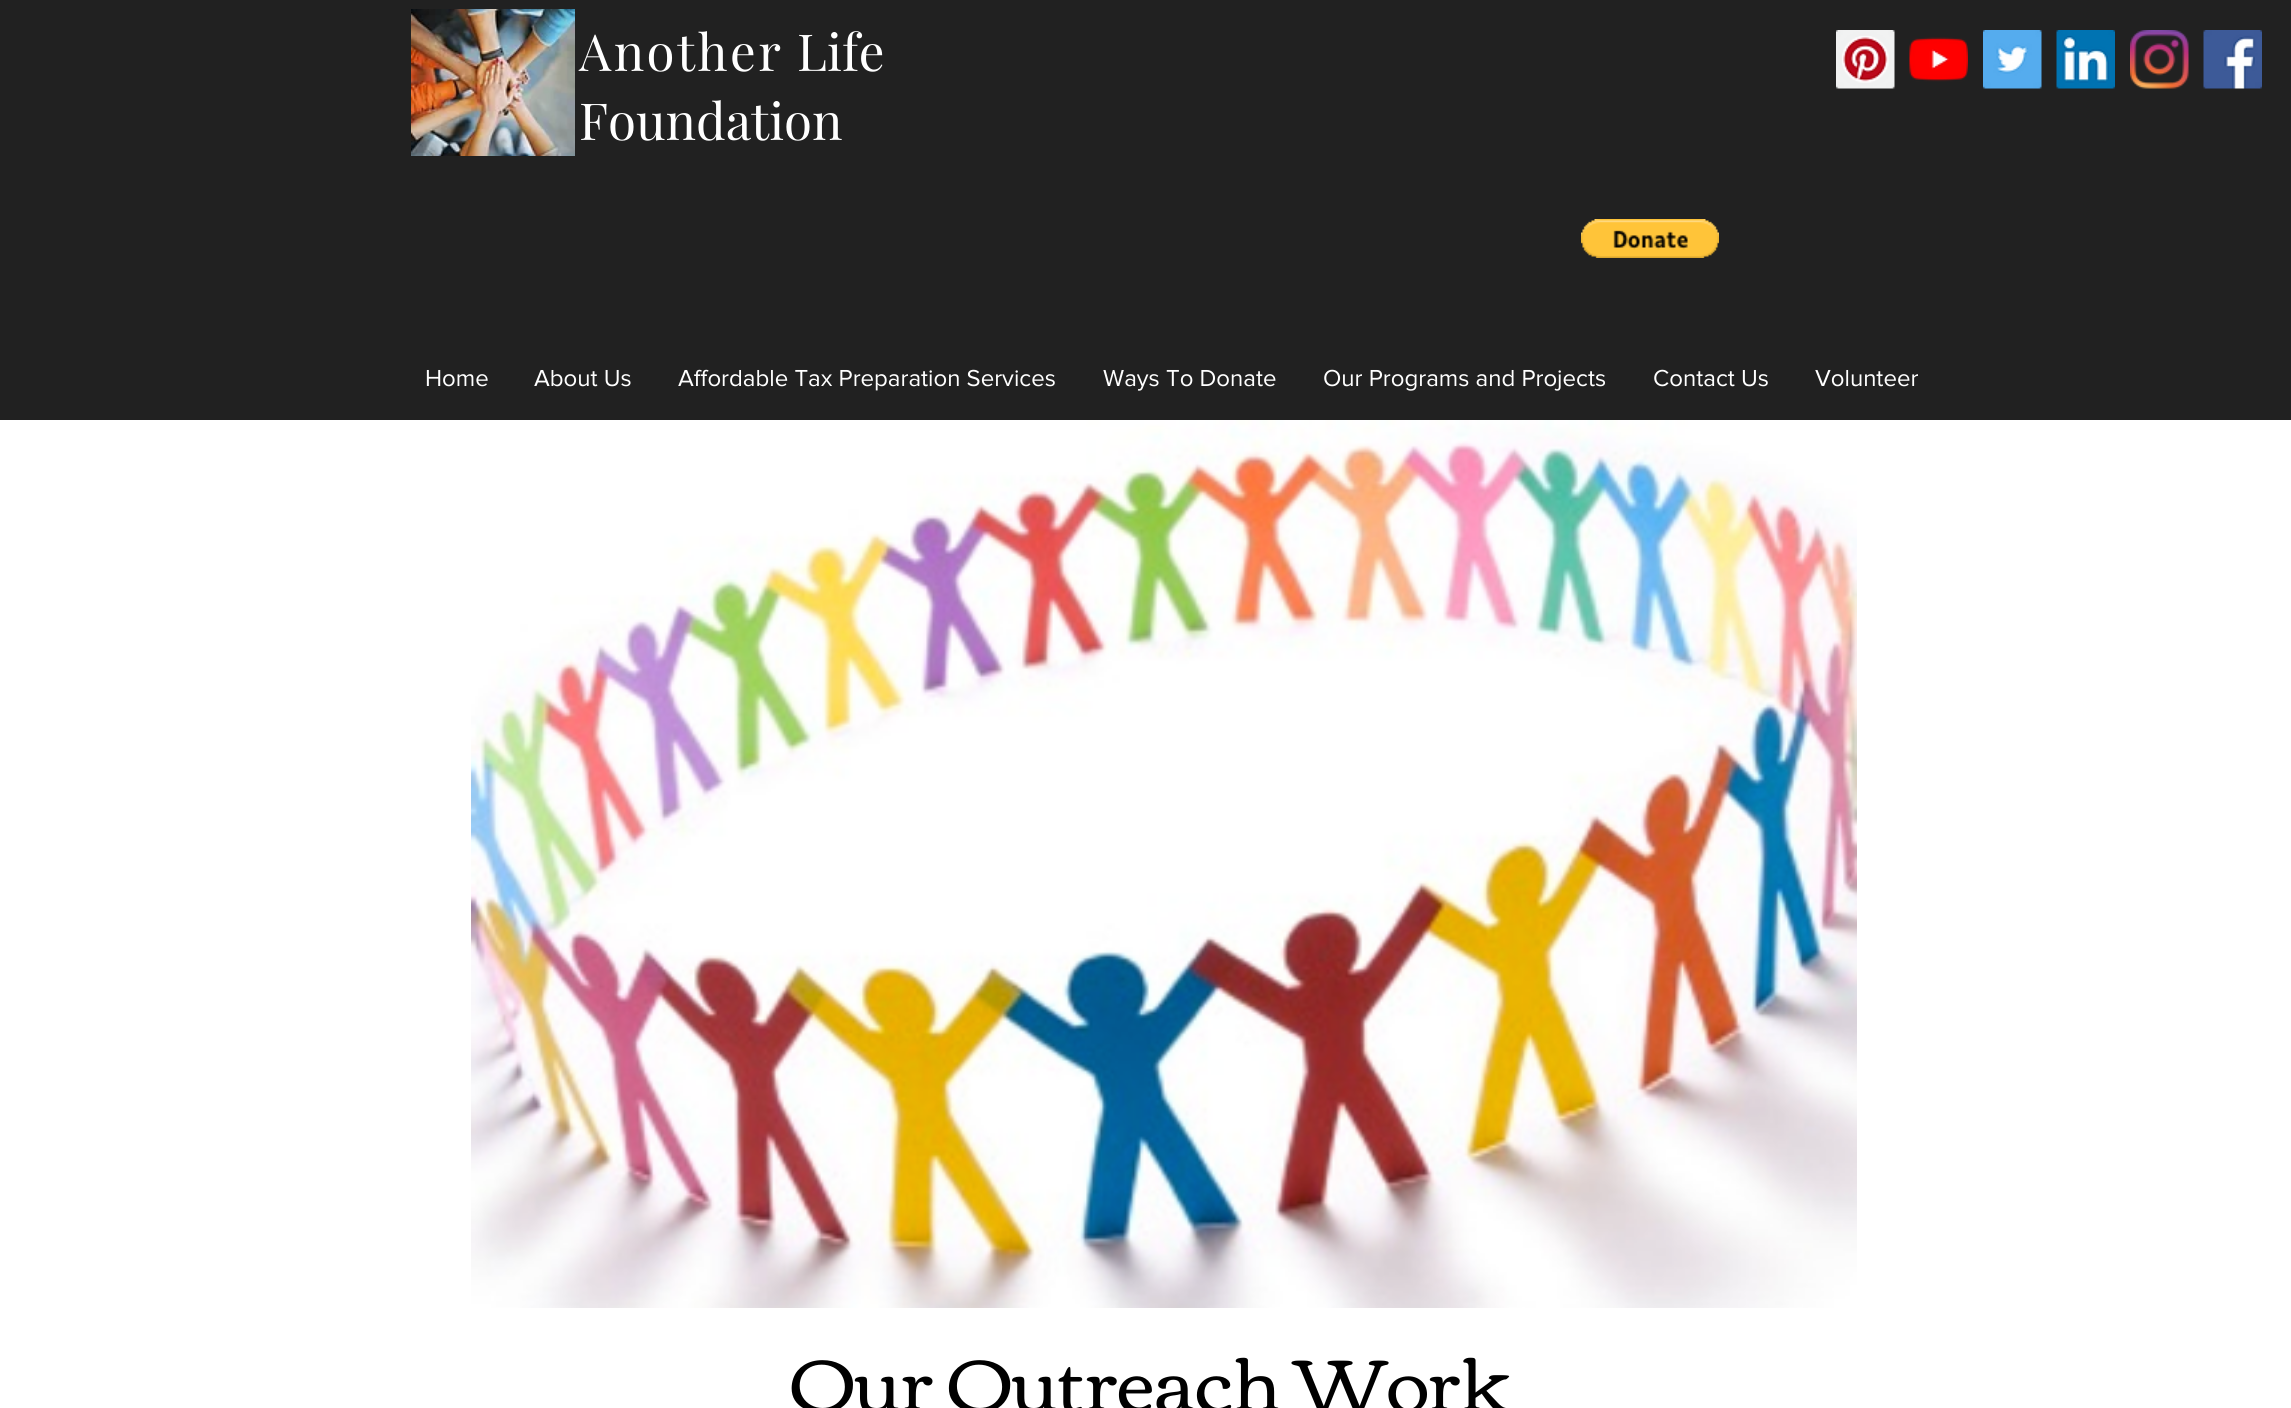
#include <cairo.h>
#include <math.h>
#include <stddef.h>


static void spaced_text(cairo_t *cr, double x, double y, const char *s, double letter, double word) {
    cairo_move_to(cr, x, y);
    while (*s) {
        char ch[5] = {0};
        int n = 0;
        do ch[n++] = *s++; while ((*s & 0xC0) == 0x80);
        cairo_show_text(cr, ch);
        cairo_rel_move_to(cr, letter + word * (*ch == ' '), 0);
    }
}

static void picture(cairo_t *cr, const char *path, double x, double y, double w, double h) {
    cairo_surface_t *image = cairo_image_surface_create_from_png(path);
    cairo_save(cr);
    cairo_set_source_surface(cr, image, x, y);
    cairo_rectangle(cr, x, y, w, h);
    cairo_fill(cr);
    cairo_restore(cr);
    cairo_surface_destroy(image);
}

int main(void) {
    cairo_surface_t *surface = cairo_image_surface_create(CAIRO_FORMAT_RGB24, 2291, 1408);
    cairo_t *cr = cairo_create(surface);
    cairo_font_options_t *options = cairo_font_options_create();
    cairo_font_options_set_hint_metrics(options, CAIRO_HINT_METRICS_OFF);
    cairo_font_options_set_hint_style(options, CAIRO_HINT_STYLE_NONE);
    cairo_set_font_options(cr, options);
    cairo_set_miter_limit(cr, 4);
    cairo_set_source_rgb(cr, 1, 1, 1);
    cairo_paint(cr);
    cairo_set_source_rgb(cr, 0.129, 0.129, 0.129);
    cairo_rectangle(cr, 0, 0, 2291, 420);
    cairo_fill(cr);
    picture(cr, "img1.png", 411, 9, 164, 147);
    cairo_select_font_face(cr, "Playfair Display", CAIRO_FONT_SLANT_NORMAL, CAIRO_FONT_WEIGHT_NORMAL);
    cairo_set_font_size(cr, 51);
    cairo_set_source_rgb(cr, 1, 1, 1);
    spaced_text(cr, 579, 71, "Another", 2.5, 0);
    cairo_move_to(cr, 797, 71);
    cairo_show_text(cr, "Life");
    cairo_move_to(cr, 579, 140);
    cairo_show_text(cr, "Foundation");
    picture(cr, "img2.png", 1581, 219, 138, 39);
    cairo_select_font_face(cr, "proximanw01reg", CAIRO_FONT_SLANT_NORMAL, CAIRO_FONT_WEIGHT_NORMAL);
    cairo_set_font_size(cr, 24);
    cairo_move_to(cr, 425, 386);
    cairo_show_text(cr, "Home");
    cairo_move_to(cr, 534, 386);
    cairo_show_text(cr, "About Us");
    cairo_move_to(cr, 678, 386);
    cairo_show_text(cr, "Affordable Tax Preparation Services");
    cairo_move_to(cr, 1103, 386);
    cairo_show_text(cr, "Ways To Donate");
    cairo_move_to(cr, 1323, 386);
    cairo_show_text(cr, "Our Programs and Projects");
    cairo_move_to(cr, 1653, 386);
    cairo_show_text(cr, "Contact Us");
    cairo_move_to(cr, 1815, 386);
    cairo_show_text(cr, "Volunteer");
    picture(cr, "img3.png", 1836, 30, 59, 59);
    picture(cr, "img4.png", 1909, 37, 59, 45);
    picture(cr, "img5.png", 1983, 30, 59, 59);
    picture(cr, "img6.png", 2056, 30, 59, 59);
    picture(cr, "img7.png", 2130, 30, 59, 59);
    picture(cr, "img8.png", 2203, 30, 59, 59);
    picture(cr, "img9.png", 471, 420, 1386, 888);
    cairo_select_font_face(cr, "Corben", CAIRO_FONT_SLANT_NORMAL, CAIRO_FONT_WEIGHT_NORMAL);
    cairo_set_font_size(cr, 75);
    cairo_set_source_rgb(cr, 0, 0, 0);
    cairo_move_to(cr, 790, 1412);
    cairo_show_text(cr, "Our Outreach Work");
    cairo_surface_write_to_png(surface, "page.png");
    cairo_font_options_destroy(options);
    cairo_destroy(cr);
    cairo_surface_destroy(surface);
    return 0;
}
